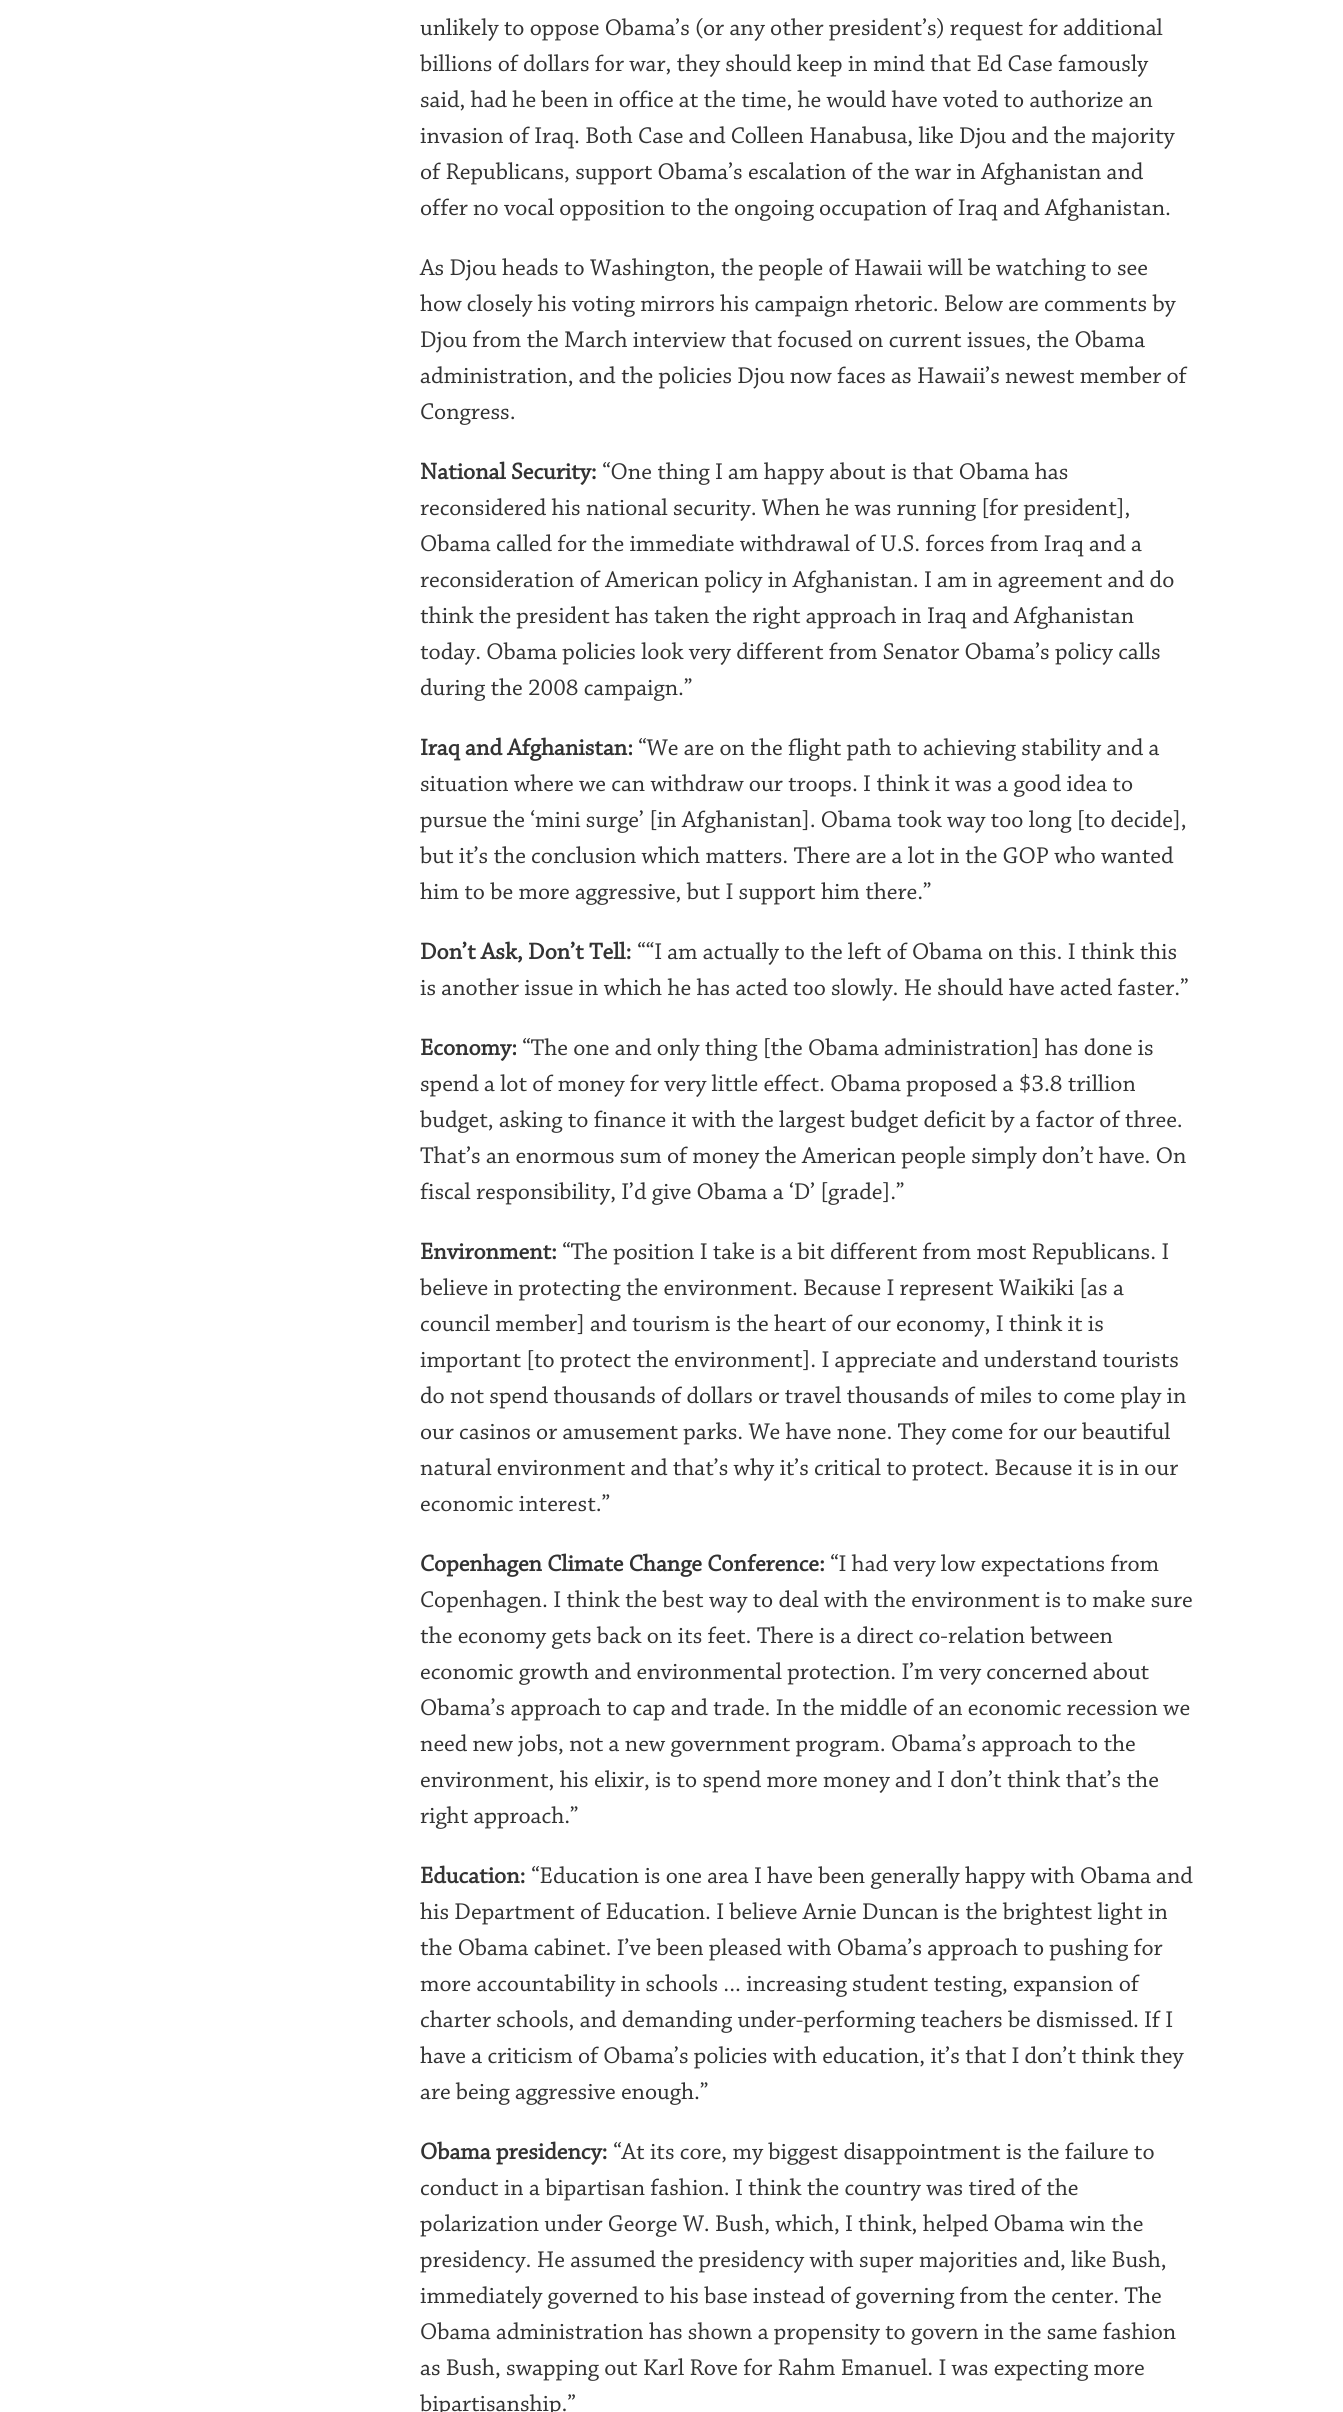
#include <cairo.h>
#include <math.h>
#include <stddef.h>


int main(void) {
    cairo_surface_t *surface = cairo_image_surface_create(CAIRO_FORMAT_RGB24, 1343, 2412);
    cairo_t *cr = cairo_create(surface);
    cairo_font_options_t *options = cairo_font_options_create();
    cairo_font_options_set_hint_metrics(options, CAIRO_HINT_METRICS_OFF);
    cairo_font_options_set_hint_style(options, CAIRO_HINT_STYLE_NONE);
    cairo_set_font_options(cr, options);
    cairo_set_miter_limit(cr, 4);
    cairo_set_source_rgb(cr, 1, 1, 1);
    cairo_paint(cr);
    cairo_select_font_face(cr, "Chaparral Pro", CAIRO_FONT_SLANT_NORMAL, CAIRO_FONT_WEIGHT_NORMAL);
    cairo_set_font_size(cr, 24);
    cairo_set_source_rgb(cr, 0.2, 0.2, 0.2);
    cairo_move_to(cr, 420, 35);
    cairo_show_text(cr, "unlikely to oppose Obama’s (or any other president’s) request for additional");
    cairo_move_to(cr, 420, 71);
    cairo_show_text(cr, "billions of dollars for war, they should keep in mind that Ed Case famously");
    cairo_move_to(cr, 420, 107);
    cairo_show_text(cr, "said, had he been in office at the time, he would have voted to authorize an");
    cairo_move_to(cr, 420, 143);
    cairo_show_text(cr, "invasion of Iraq. Both Case and Colleen Hanabusa, like Djou and the majority");
    cairo_move_to(cr, 420, 179);
    cairo_show_text(cr, "of Republicans, support Obama’s escalation of the war in Afghanistan and");
    cairo_move_to(cr, 420, 215);
    cairo_show_text(cr, "offer no vocal opposition to the ongoing occupation of Iraq and Afghanistan.");
    cairo_move_to(cr, 420, 275);
    cairo_show_text(cr, "As Djou heads to Washington, the people of Hawaii will be watching to see");
    cairo_move_to(cr, 420, 311);
    cairo_show_text(cr, "how closely his voting mirrors his campaign rhetoric. Below are comments by");
    cairo_move_to(cr, 420, 347);
    cairo_show_text(cr, "Djou from the March interview that focused on current issues, the Obama");
    cairo_move_to(cr, 420, 383);
    cairo_show_text(cr, "administration, and the policies Djou now faces as Hawaii’s newest member of");
    cairo_move_to(cr, 420, 419);
    cairo_show_text(cr, "Congress.");
    cairo_select_font_face(cr, "Chaparral Pro", CAIRO_FONT_SLANT_NORMAL, CAIRO_FONT_WEIGHT_BOLD);
    cairo_move_to(cr, 420, 479);
    cairo_show_text(cr, "National Security:");
    cairo_select_font_face(cr, "Chaparral Pro", CAIRO_FONT_SLANT_NORMAL, CAIRO_FONT_WEIGHT_NORMAL);
    cairo_move_to(cr, 602, 479);
    cairo_show_text(cr, "“One thing I am happy about is that Obama has");
    cairo_move_to(cr, 420, 515);
    cairo_show_text(cr, "reconsidered his national security. When he was running [for president],");
    cairo_move_to(cr, 420, 551);
    cairo_show_text(cr, "Obama called for the immediate withdrawal of U.S. forces from Iraq and a");
    cairo_move_to(cr, 420, 587);
    cairo_show_text(cr, "reconsideration of American policy in Afghanistan. I am in agreement and do");
    cairo_move_to(cr, 420, 623);
    cairo_show_text(cr, "think the president has taken the right approach in Iraq and Afghanistan");
    cairo_move_to(cr, 420, 659);
    cairo_show_text(cr, "today. Obama policies look very different from Senator Obama’s policy calls");
    cairo_move_to(cr, 420, 695);
    cairo_show_text(cr, "during the 2008 campaign.”");
    cairo_select_font_face(cr, "Chaparral Pro", CAIRO_FONT_SLANT_NORMAL, CAIRO_FONT_WEIGHT_BOLD);
    cairo_move_to(cr, 420, 755);
    cairo_show_text(cr, "Iraq and Afghanistan:");
    cairo_select_font_face(cr, "Chaparral Pro", CAIRO_FONT_SLANT_NORMAL, CAIRO_FONT_WEIGHT_NORMAL);
    cairo_move_to(cr, 638, 755);
    cairo_show_text(cr, "“We are on the flight path to achieving stability and a");
    cairo_move_to(cr, 420, 791);
    cairo_show_text(cr, "situation where we can withdraw our troops. I think it was a good idea to");
    cairo_move_to(cr, 420, 827);
    cairo_show_text(cr, "pursue the ‘mini surge’ [in Afghanistan]. Obama took way too long [to decide],");
    cairo_move_to(cr, 420, 863);
    cairo_show_text(cr, "but it’s the conclusion which matters. There are a lot in the GOP who wanted");
    cairo_move_to(cr, 420, 899);
    cairo_show_text(cr, "him to be more aggressive, but I support him there.”");
    cairo_select_font_face(cr, "Chaparral Pro", CAIRO_FONT_SLANT_NORMAL, CAIRO_FONT_WEIGHT_BOLD);
    cairo_move_to(cr, 420, 959);
    cairo_show_text(cr, "Don’t Ask, Don’t Tell:");
    cairo_select_font_face(cr, "Chaparral Pro", CAIRO_FONT_SLANT_NORMAL, CAIRO_FONT_WEIGHT_NORMAL);
    cairo_move_to(cr, 637, 959);
    cairo_show_text(cr, "““I am actually to the left of Obama on this. I think this");
    cairo_move_to(cr, 420, 995);
    cairo_show_text(cr, "is another issue in which he has acted too slowly. He should have acted faster.”");
    cairo_select_font_face(cr, "Chaparral Pro", CAIRO_FONT_SLANT_NORMAL, CAIRO_FONT_WEIGHT_BOLD);
    cairo_move_to(cr, 420, 1055);
    cairo_show_text(cr, "Economy:");
    cairo_select_font_face(cr, "Chaparral Pro", CAIRO_FONT_SLANT_NORMAL, CAIRO_FONT_WEIGHT_NORMAL);
    cairo_move_to(cr, 522, 1055);
    cairo_show_text(cr, "“The one and only thing [the Obama administration] has done is");
    cairo_move_to(cr, 420, 1091);
    cairo_show_text(cr, "spend a lot of money for very little effect. Obama proposed a $3.8 trillion");
    cairo_move_to(cr, 420, 1127);
    cairo_show_text(cr, "budget, asking to finance it with the largest budget deficit by a factor of three.");
    cairo_move_to(cr, 420, 1163);
    cairo_show_text(cr, "That’s an enormous sum of money the American people simply don’t have. On");
    cairo_move_to(cr, 420, 1199);
    cairo_show_text(cr, "fiscal responsibility, I’d give Obama a ‘D’ [grade].”");
    cairo_select_font_face(cr, "Chaparral Pro", CAIRO_FONT_SLANT_NORMAL, CAIRO_FONT_WEIGHT_BOLD);
    cairo_move_to(cr, 420, 1259);
    cairo_show_text(cr, "Environment:");
    cairo_select_font_face(cr, "Chaparral Pro", CAIRO_FONT_SLANT_NORMAL, CAIRO_FONT_WEIGHT_NORMAL);
    cairo_move_to(cr, 562, 1259);
    cairo_show_text(cr, "“The position I take is a bit different from most Republicans. I");
    cairo_move_to(cr, 420, 1295);
    cairo_show_text(cr, "believe in protecting the environment. Because I represent Waikiki [as a");
    cairo_move_to(cr, 420, 1331);
    cairo_show_text(cr, "council member] and tourism is the heart of our economy, I think it is");
    cairo_move_to(cr, 420, 1367);
    cairo_show_text(cr, "important [to protect the environment]. I appreciate and understand tourists");
    cairo_move_to(cr, 420, 1403);
    cairo_show_text(cr, "do not spend thousands of dollars or travel thousands of miles to come play in");
    cairo_move_to(cr, 420, 1439);
    cairo_show_text(cr, "our casinos or amusement parks. We have none. They come for our beautiful");
    cairo_move_to(cr, 420, 1475);
    cairo_show_text(cr, "natural environment and that’s why it’s critical to protect. Because it is in our");
    cairo_move_to(cr, 420, 1511);
    cairo_show_text(cr, "economic interest.”");
    cairo_select_font_face(cr, "Chaparral Pro", CAIRO_FONT_SLANT_NORMAL, CAIRO_FONT_WEIGHT_BOLD);
    cairo_move_to(cr, 420, 1571);
    cairo_show_text(cr, "Copenhagen Climate Change Conference:");
    cairo_select_font_face(cr, "Chaparral Pro", CAIRO_FONT_SLANT_NORMAL, CAIRO_FONT_WEIGHT_NORMAL);
    cairo_move_to(cr, 830, 1571);
    cairo_show_text(cr, "“I had very low expectations from");
    cairo_move_to(cr, 420, 1607);
    cairo_show_text(cr, "Copenhagen. I think the best way to deal with the environment is to make sure");
    cairo_move_to(cr, 420, 1643);
    cairo_show_text(cr, "the economy gets back on its feet. There is a direct co-relation between");
    cairo_move_to(cr, 420, 1679);
    cairo_show_text(cr, "economic growth and environmental protection. I’m very concerned about");
    cairo_move_to(cr, 420, 1715);
    cairo_show_text(cr, "Obama’s approach to cap and trade. In the middle of an economic recession we");
    cairo_move_to(cr, 420, 1751);
    cairo_show_text(cr, "need new jobs, not a new government program. Obama’s approach to the");
    cairo_move_to(cr, 420, 1787);
    cairo_show_text(cr, "environment, his elixir, is to spend more money and I don’t think that’s the");
    cairo_move_to(cr, 420, 1823);
    cairo_show_text(cr, "right approach.”");
    cairo_select_font_face(cr, "Chaparral Pro", CAIRO_FONT_SLANT_NORMAL, CAIRO_FONT_WEIGHT_BOLD);
    cairo_move_to(cr, 420, 1883);
    cairo_show_text(cr, "Education:");
    cairo_select_font_face(cr, "Chaparral Pro", CAIRO_FONT_SLANT_NORMAL, CAIRO_FONT_WEIGHT_NORMAL);
    cairo_move_to(cr, 531, 1883);
    cairo_show_text(cr, "“Education is one area I have been generally happy with Obama and");
    cairo_move_to(cr, 420, 1919);
    cairo_show_text(cr, "his Department of Education. I believe Arnie Duncan is the brightest light in");
    cairo_move_to(cr, 420, 1955);
    cairo_show_text(cr, "the Obama cabinet. I’ve been pleased with Obama’s approach to pushing for");
    cairo_move_to(cr, 420, 1991);
    cairo_show_text(cr, "more accountability in schools ... increasing student testing, expansion of");
    cairo_move_to(cr, 420, 2027);
    cairo_show_text(cr, "charter schools, and demanding under-performing teachers be dismissed. If I");
    cairo_move_to(cr, 420, 2063);
    cairo_show_text(cr, "have a criticism of Obama’s policies with education, it’s that I don’t think they");
    cairo_move_to(cr, 420, 2099);
    cairo_show_text(cr, "are being aggressive enough.”");
    cairo_select_font_face(cr, "Chaparral Pro", CAIRO_FONT_SLANT_NORMAL, CAIRO_FONT_WEIGHT_BOLD);
    cairo_move_to(cr, 420, 2159);
    cairo_show_text(cr, "Obama presidency:");
    cairo_select_font_face(cr, "Chaparral Pro", CAIRO_FONT_SLANT_NORMAL, CAIRO_FONT_WEIGHT_NORMAL);
    cairo_move_to(cr, 613, 2159);
    cairo_show_text(cr, "“At its core, my biggest disappointment is the failure to");
    cairo_move_to(cr, 420, 2195);
    cairo_show_text(cr, "conduct in a bipartisan fashion. I think the country was tired of the");
    cairo_move_to(cr, 420, 2231);
    cairo_show_text(cr, "polarization under George W. Bush, which, I think, helped Obama win the");
    cairo_move_to(cr, 420, 2267);
    cairo_show_text(cr, "presidency. He assumed the presidency with super majorities and, like Bush,");
    cairo_move_to(cr, 420, 2303);
    cairo_show_text(cr, "immediately governed to his base instead of governing from the center. The");
    cairo_move_to(cr, 420, 2339);
    cairo_show_text(cr, "Obama administration has shown a propensity to govern in the same fashion");
    cairo_move_to(cr, 420, 2375);
    cairo_show_text(cr, "as Bush, swapping out Karl Rove for Rahm Emanuel. I was expecting more");
    cairo_move_to(cr, 420, 2411);
    cairo_show_text(cr, "bipartisanship.”");
    cairo_surface_write_to_png(surface, "page.png");
    cairo_font_options_destroy(options);
    cairo_destroy(cr);
    cairo_surface_destroy(surface);
    return 0;
}
